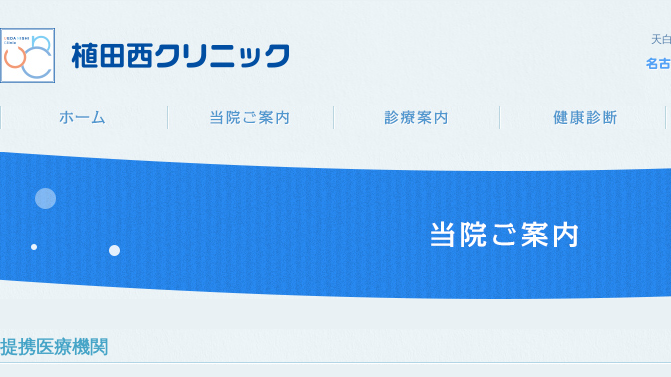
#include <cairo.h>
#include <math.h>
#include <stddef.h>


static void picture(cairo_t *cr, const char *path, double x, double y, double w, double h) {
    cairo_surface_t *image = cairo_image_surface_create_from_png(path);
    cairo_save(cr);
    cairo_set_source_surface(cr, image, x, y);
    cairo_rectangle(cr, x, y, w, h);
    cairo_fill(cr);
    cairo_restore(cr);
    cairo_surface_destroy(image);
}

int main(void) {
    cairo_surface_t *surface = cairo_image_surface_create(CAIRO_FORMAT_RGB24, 671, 377);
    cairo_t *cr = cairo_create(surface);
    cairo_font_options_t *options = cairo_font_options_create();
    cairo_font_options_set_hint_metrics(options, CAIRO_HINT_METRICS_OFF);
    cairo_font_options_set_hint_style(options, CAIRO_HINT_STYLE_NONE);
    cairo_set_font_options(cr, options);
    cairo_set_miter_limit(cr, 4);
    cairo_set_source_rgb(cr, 0.914, 0.945, 0.957);
    cairo_paint(cr);
    picture(cr, "img1.png", 0, 1, 671, 151);
    picture(cr, "img2.png", 645, 56, 26, 47);
    picture(cr, "img3.png", 0, 28, 289, 55);
    cairo_select_font_face(cr, "WenQuanYi Zen Hei Medium", CAIRO_FONT_SLANT_NORMAL, CAIRO_FONT_WEIGHT_NORMAL);
    cairo_set_font_size(cr, 11);
    cairo_set_source_rgb(cr, 0.337, 0.502, 0.675);
    cairo_move_to(cr, 651, 43);
    cairo_show_text(cr, "天白");
    picture(cr, "img4.png", 0, 106, 142, 23);
    picture(cr, "img5.png", 167, 106, 163, 23);
    picture(cr, "img6.png", 333, 106, 164, 23);
    picture(cr, "img7.png", 499, 106, 167, 23);
    picture(cr, "img8.png", 666, 107, 4, 22);
    picture(cr, "img9.png", 0, 152, 671, 147);
    picture(cr, "img10.png", 0, 329, 671, 36);
    cairo_select_font_face(cr, "WenQuanYi Zen Hei", CAIRO_FONT_SLANT_NORMAL, CAIRO_FONT_WEIGHT_BOLD);
    cairo_set_font_size(cr, 18);
    cairo_set_source_rgb(cr, 0.271, 0.643, 0.78);
    cairo_move_to(cr, 0, 353);
    cairo_show_text(cr, "提携医療機関");
    cairo_surface_write_to_png(surface, "page.png");
    cairo_font_options_destroy(options);
    cairo_destroy(cr);
    cairo_surface_destroy(surface);
    return 0;
}
